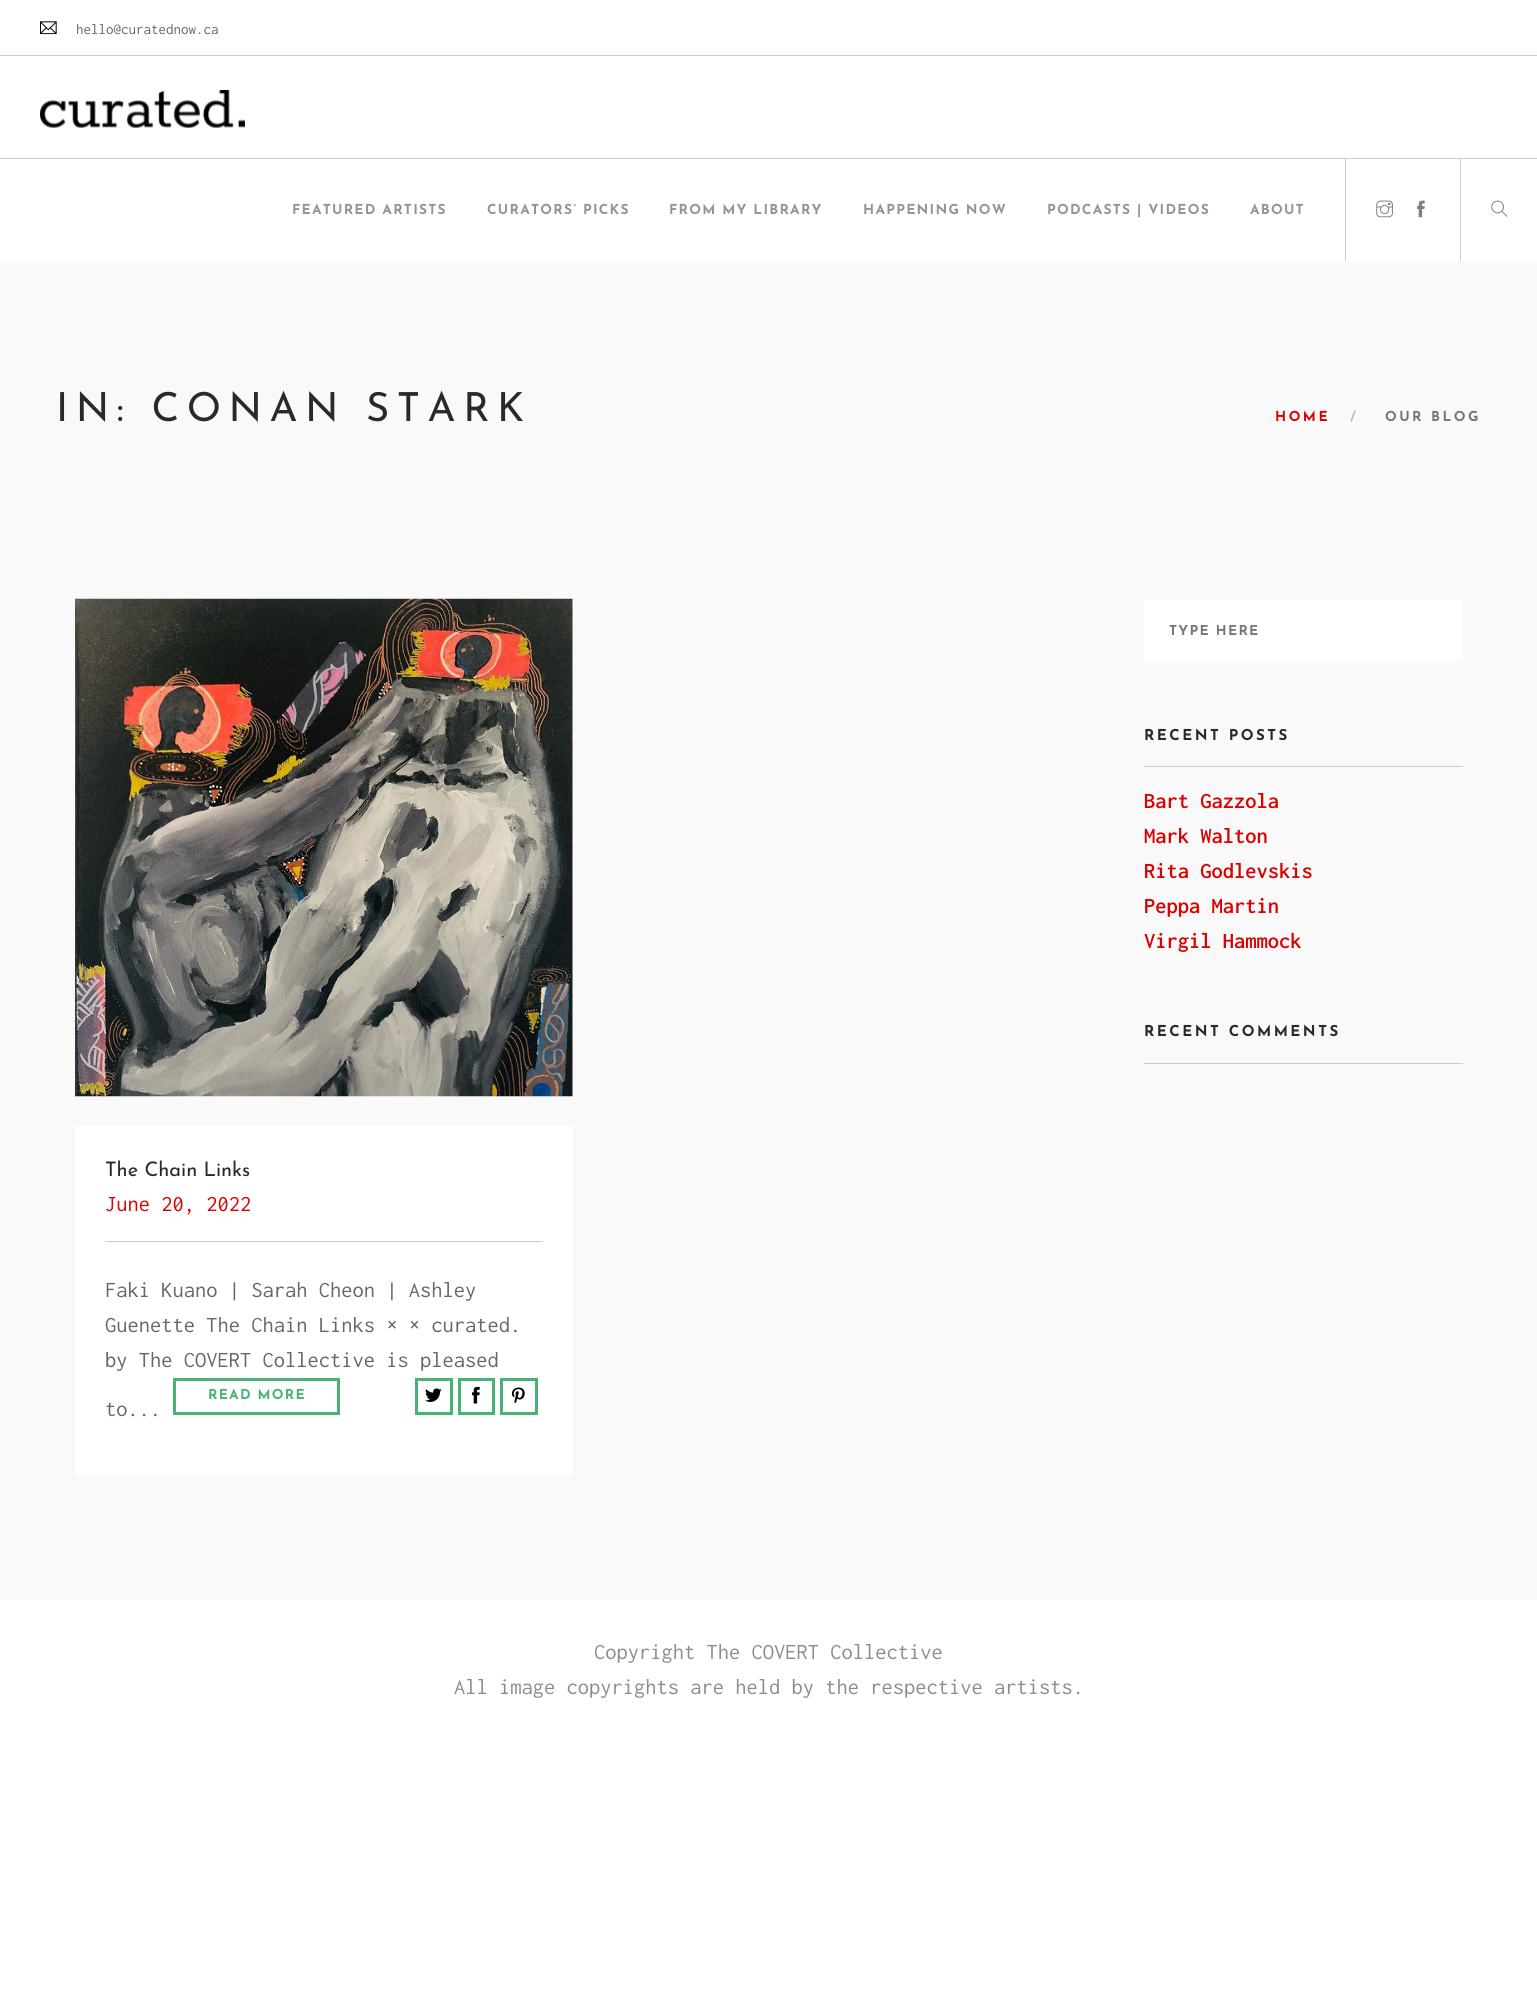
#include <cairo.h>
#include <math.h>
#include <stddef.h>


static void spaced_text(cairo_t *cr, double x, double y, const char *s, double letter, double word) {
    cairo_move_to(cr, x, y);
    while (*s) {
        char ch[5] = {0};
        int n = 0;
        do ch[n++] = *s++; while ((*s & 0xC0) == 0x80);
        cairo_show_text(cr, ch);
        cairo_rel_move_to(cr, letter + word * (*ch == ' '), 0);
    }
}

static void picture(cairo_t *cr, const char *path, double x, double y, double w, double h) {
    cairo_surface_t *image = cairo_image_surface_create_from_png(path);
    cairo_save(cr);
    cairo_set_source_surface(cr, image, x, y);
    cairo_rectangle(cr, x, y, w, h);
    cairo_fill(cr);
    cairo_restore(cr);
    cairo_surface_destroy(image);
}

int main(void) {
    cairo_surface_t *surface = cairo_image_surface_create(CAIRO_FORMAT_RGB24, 1537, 1997);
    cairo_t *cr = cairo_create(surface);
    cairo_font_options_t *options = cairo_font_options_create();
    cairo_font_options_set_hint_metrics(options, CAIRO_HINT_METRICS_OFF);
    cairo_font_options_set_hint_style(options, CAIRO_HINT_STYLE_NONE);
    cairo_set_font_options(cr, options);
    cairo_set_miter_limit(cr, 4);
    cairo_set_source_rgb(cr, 1, 1, 1);
    cairo_paint(cr);
    cairo_set_source_rgb(cr, 0.8, 0.8, 0.8);
    cairo_rectangle(cr, 0, 55, 1537, 1);
    cairo_fill(cr);
    picture(cr, "img1.png", 40, 21, 17, 14);
    cairo_select_font_face(cr, "Inconsolata", CAIRO_FONT_SLANT_NORMAL, CAIRO_FONT_WEIGHT_NORMAL);
    cairo_set_font_size(cr, 15);
    cairo_set_source_rgb(cr, 0.4, 0.4, 0.4);
    cairo_move_to(cr, 76, 34);
    cairo_show_text(cr, "hello@curatednow.ca");
    cairo_set_source_rgb(cr, 0.8, 0.8, 0.8);
    cairo_rectangle(cr, 0, 158, 1537, 1);
    cairo_fill(cr);
    picture(cr, "img2.png", 40, 90, 205, 38);
    cairo_select_font_face(cr, "Josefin Sans", CAIRO_FONT_SLANT_NORMAL, CAIRO_FONT_WEIGHT_BOLD);
    cairo_set_font_size(cr, 13.75);
    cairo_set_source_rgb(cr, 0.58, 0.58, 0.58);
    spaced_text(cr, 292, 214, "FEATURED ARTISTS", 1.25, 0);
    spaced_text(cr, 487, 214, "CURATORS’ PICKS", 1.25, 0);
    spaced_text(cr, 669, 214, "FROM MY LIBRARY", 1.25, 0);
    spaced_text(cr, 863, 214, "HAPPENING NOW", 1.25, 0);
    spaced_text(cr, 1047, 214, "PODCASTS | VIDEOS", 1.25, 0);
    spaced_text(cr, 1250, 214, "ABOUT", 1.25, 0);
    cairo_set_source_rgb(cr, 0.8, 0.8, 0.8);
    cairo_rectangle(cr, 1345, 159, 1, 102);
    cairo_fill(cr);
    picture(cr, "img3.png", 1376, 200, 17, 18);
    picture(cr, "img4.png", 1417, 200, 8, 18);
    cairo_rectangle(cr, 1460, 159, 1, 102);
    cairo_fill(cr);
    picture(cr, "img5.png", 1491, 200, 17, 17);
    cairo_set_source_rgb(cr, 0.973, 0.973, 0.973);
    cairo_rectangle(cr, 0, 261, 1537, 1339);
    cairo_fill(cr);
    cairo_select_font_face(cr, "Josefin Sans", CAIRO_FONT_SLANT_NORMAL, CAIRO_FONT_WEIGHT_NORMAL);
    cairo_set_font_size(cr, 40);
    cairo_set_source_rgb(cr, 0.161, 0.161, 0.161);
    spaced_text(cr, 56, 421, "IN: CONAN STARK", 7.5, 0);
    cairo_select_font_face(cr, "Josefin Sans", CAIRO_FONT_SLANT_NORMAL, CAIRO_FONT_WEIGHT_BOLD);
    cairo_set_font_size(cr, 13.75);
    cairo_set_source_rgb(cr, 0.855, 0.004, 0.004);
    spaced_text(cr, 1275, 421, "HOME", 2.5, 0);
    cairo_set_source_rgb(cr, 0.733, 0.733, 0.733);
    spaced_text(cr, 1350, 421, "/", 2.5, 0);
    cairo_set_source_rgb(cr, 0.467, 0.467, 0.467);
    spaced_text(cr, 1385, 421, "OUR BLOG", 2.5, 0);
    cairo_set_source_rgb(cr, 1, 1, 1);
    cairo_rectangle(cr, 1144, 599, 319, 62);
    cairo_fill(cr);
    cairo_save(cr);
    cairo_rectangle(cr, 1169, 625, 294, 14);
    cairo_clip(cr);
    cairo_set_source_rgb(cr, 0.467, 0.467, 0.467);
    spaced_text(cr, 1169, 635, "TYPE HERE", 1.25, 0);
    cairo_restore(cr);
    cairo_set_font_size(cr, 15);
    cairo_set_source_rgb(cr, 0.161, 0.161, 0.161);
    spaced_text(cr, 1144, 740, "RECENT POSTS", 2.5, 0);
    cairo_set_source_rgb(cr, 0.8, 0.8, 0.8);
    cairo_rectangle(cr, 1144, 766, 319, 1);
    cairo_fill(cr);
    cairo_select_font_face(cr, "Inconsolata SemiBold", CAIRO_FONT_SLANT_NORMAL, CAIRO_FONT_WEIGHT_NORMAL);
    cairo_set_font_size(cr, 22.5);
    cairo_set_source_rgb(cr, 0.855, 0.004, 0.004);
    cairo_move_to(cr, 1144, 808);
    cairo_show_text(cr, "Bart Gazzola");
    cairo_move_to(cr, 1144, 843);
    cairo_show_text(cr, "Mark Walton");
    cairo_move_to(cr, 1144, 878);
    cairo_show_text(cr, "Rita Godlevskis");
    cairo_move_to(cr, 1144, 913);
    cairo_show_text(cr, "Peppa Martin");
    cairo_move_to(cr, 1144, 948);
    cairo_show_text(cr, "Virgil Hammock");
    cairo_select_font_face(cr, "Josefin Sans", CAIRO_FONT_SLANT_NORMAL, CAIRO_FONT_WEIGHT_BOLD);
    cairo_set_font_size(cr, 15);
    cairo_set_source_rgb(cr, 0.161, 0.161, 0.161);
    spaced_text(cr, 1144, 1036, "RECENT COMMENTS", 2.5, 0);
    cairo_set_source_rgb(cr, 0.8, 0.8, 0.8);
    cairo_rectangle(cr, 1144, 1063, 319, 1);
    cairo_fill(cr);
    picture(cr, "img6.png", 75, 598, 498, 499);
    cairo_set_source_rgb(cr, 1, 1, 1);
    cairo_rectangle(cr, 75, 1126, 498, 349);
    cairo_fill(cr);
    cairo_select_font_face(cr, "Josefin Sans", CAIRO_FONT_SLANT_NORMAL, CAIRO_FONT_WEIGHT_NORMAL);
    cairo_set_font_size(cr, 20);
    cairo_set_source_rgb(cr, 0.161, 0.161, 0.161);
    cairo_move_to(cr, 105, 1176);
    cairo_show_text(cr, "The Chain Links");
    cairo_select_font_face(cr, "Inconsolata", CAIRO_FONT_SLANT_NORMAL, CAIRO_FONT_WEIGHT_NORMAL);
    cairo_set_font_size(cr, 22.5);
    cairo_set_source_rgb(cr, 0.855, 0.004, 0.004);
    cairo_move_to(cr, 105, 1211);
    cairo_show_text(cr, "June 20, 2022");
    cairo_set_source_rgb(cr, 0.8, 0.8, 0.8);
    cairo_rectangle(cr, 105, 1241, 438, 1);
    cairo_fill(cr);
    cairo_set_source_rgb(cr, 0.4, 0.4, 0.4);
    cairo_move_to(cr, 105, 1297);
    cairo_show_text(cr, "Faki Kuano | Sarah Cheon | Ashley");
    cairo_move_to(cr, 105, 1332);
    cairo_show_text(cr, "Guenette The Chain Links × × curated.");
    cairo_move_to(cr, 105, 1367);
    cairo_show_text(cr, "by The COVERT Collective is pleased");
    cairo_rectangle(cr, 174.5, 1379.5, 164, 34);
    cairo_set_source_rgb(cr, 0.278, 0.706, 0.459);
    cairo_set_line_width(cr, 3);
    cairo_stroke(cr);
    cairo_select_font_face(cr, "Josefin Sans", CAIRO_FONT_SLANT_NORMAL, CAIRO_FONT_WEIGHT_BOLD);
    cairo_set_font_size(cr, 13.75);
    spaced_text(cr, 208, 1399, "READ MORE", 1.25, 0);
    cairo_rectangle(cr, 416.5, 1379.5, 35, 34);
    cairo_stroke(cr);
    picture(cr, "img7.png", 425, 1388, 17, 14);
    cairo_rectangle(cr, 459.5, 1379.5, 34, 34);
    cairo_stroke(cr);
    picture(cr, "img8.png", 471, 1386, 9, 18);
    cairo_rectangle(cr, 501.5, 1379.5, 35, 34);
    cairo_stroke(cr);
    picture(cr, "img9.png", 511, 1387, 14, 17);
    cairo_select_font_face(cr, "Inconsolata", CAIRO_FONT_SLANT_NORMAL, CAIRO_FONT_WEIGHT_NORMAL);
    cairo_set_font_size(cr, 22.5);
    cairo_set_source_rgb(cr, 0.4, 0.4, 0.4);
    cairo_move_to(cr, 105, 1416);
    cairo_show_text(cr, "to...");
    cairo_set_source_rgb(cr, 0.549, 0.549, 0.549);
    cairo_move_to(cr, 594, 1659);
    cairo_show_text(cr, "Copyright The COVERT Collective");
    cairo_move_to(cr, 454, 1694);
    cairo_show_text(cr, "All image copyrights are held by the respective artists.");
    cairo_surface_write_to_png(surface, "page.png");
    cairo_font_options_destroy(options);
    cairo_destroy(cr);
    cairo_surface_destroy(surface);
    return 0;
}
